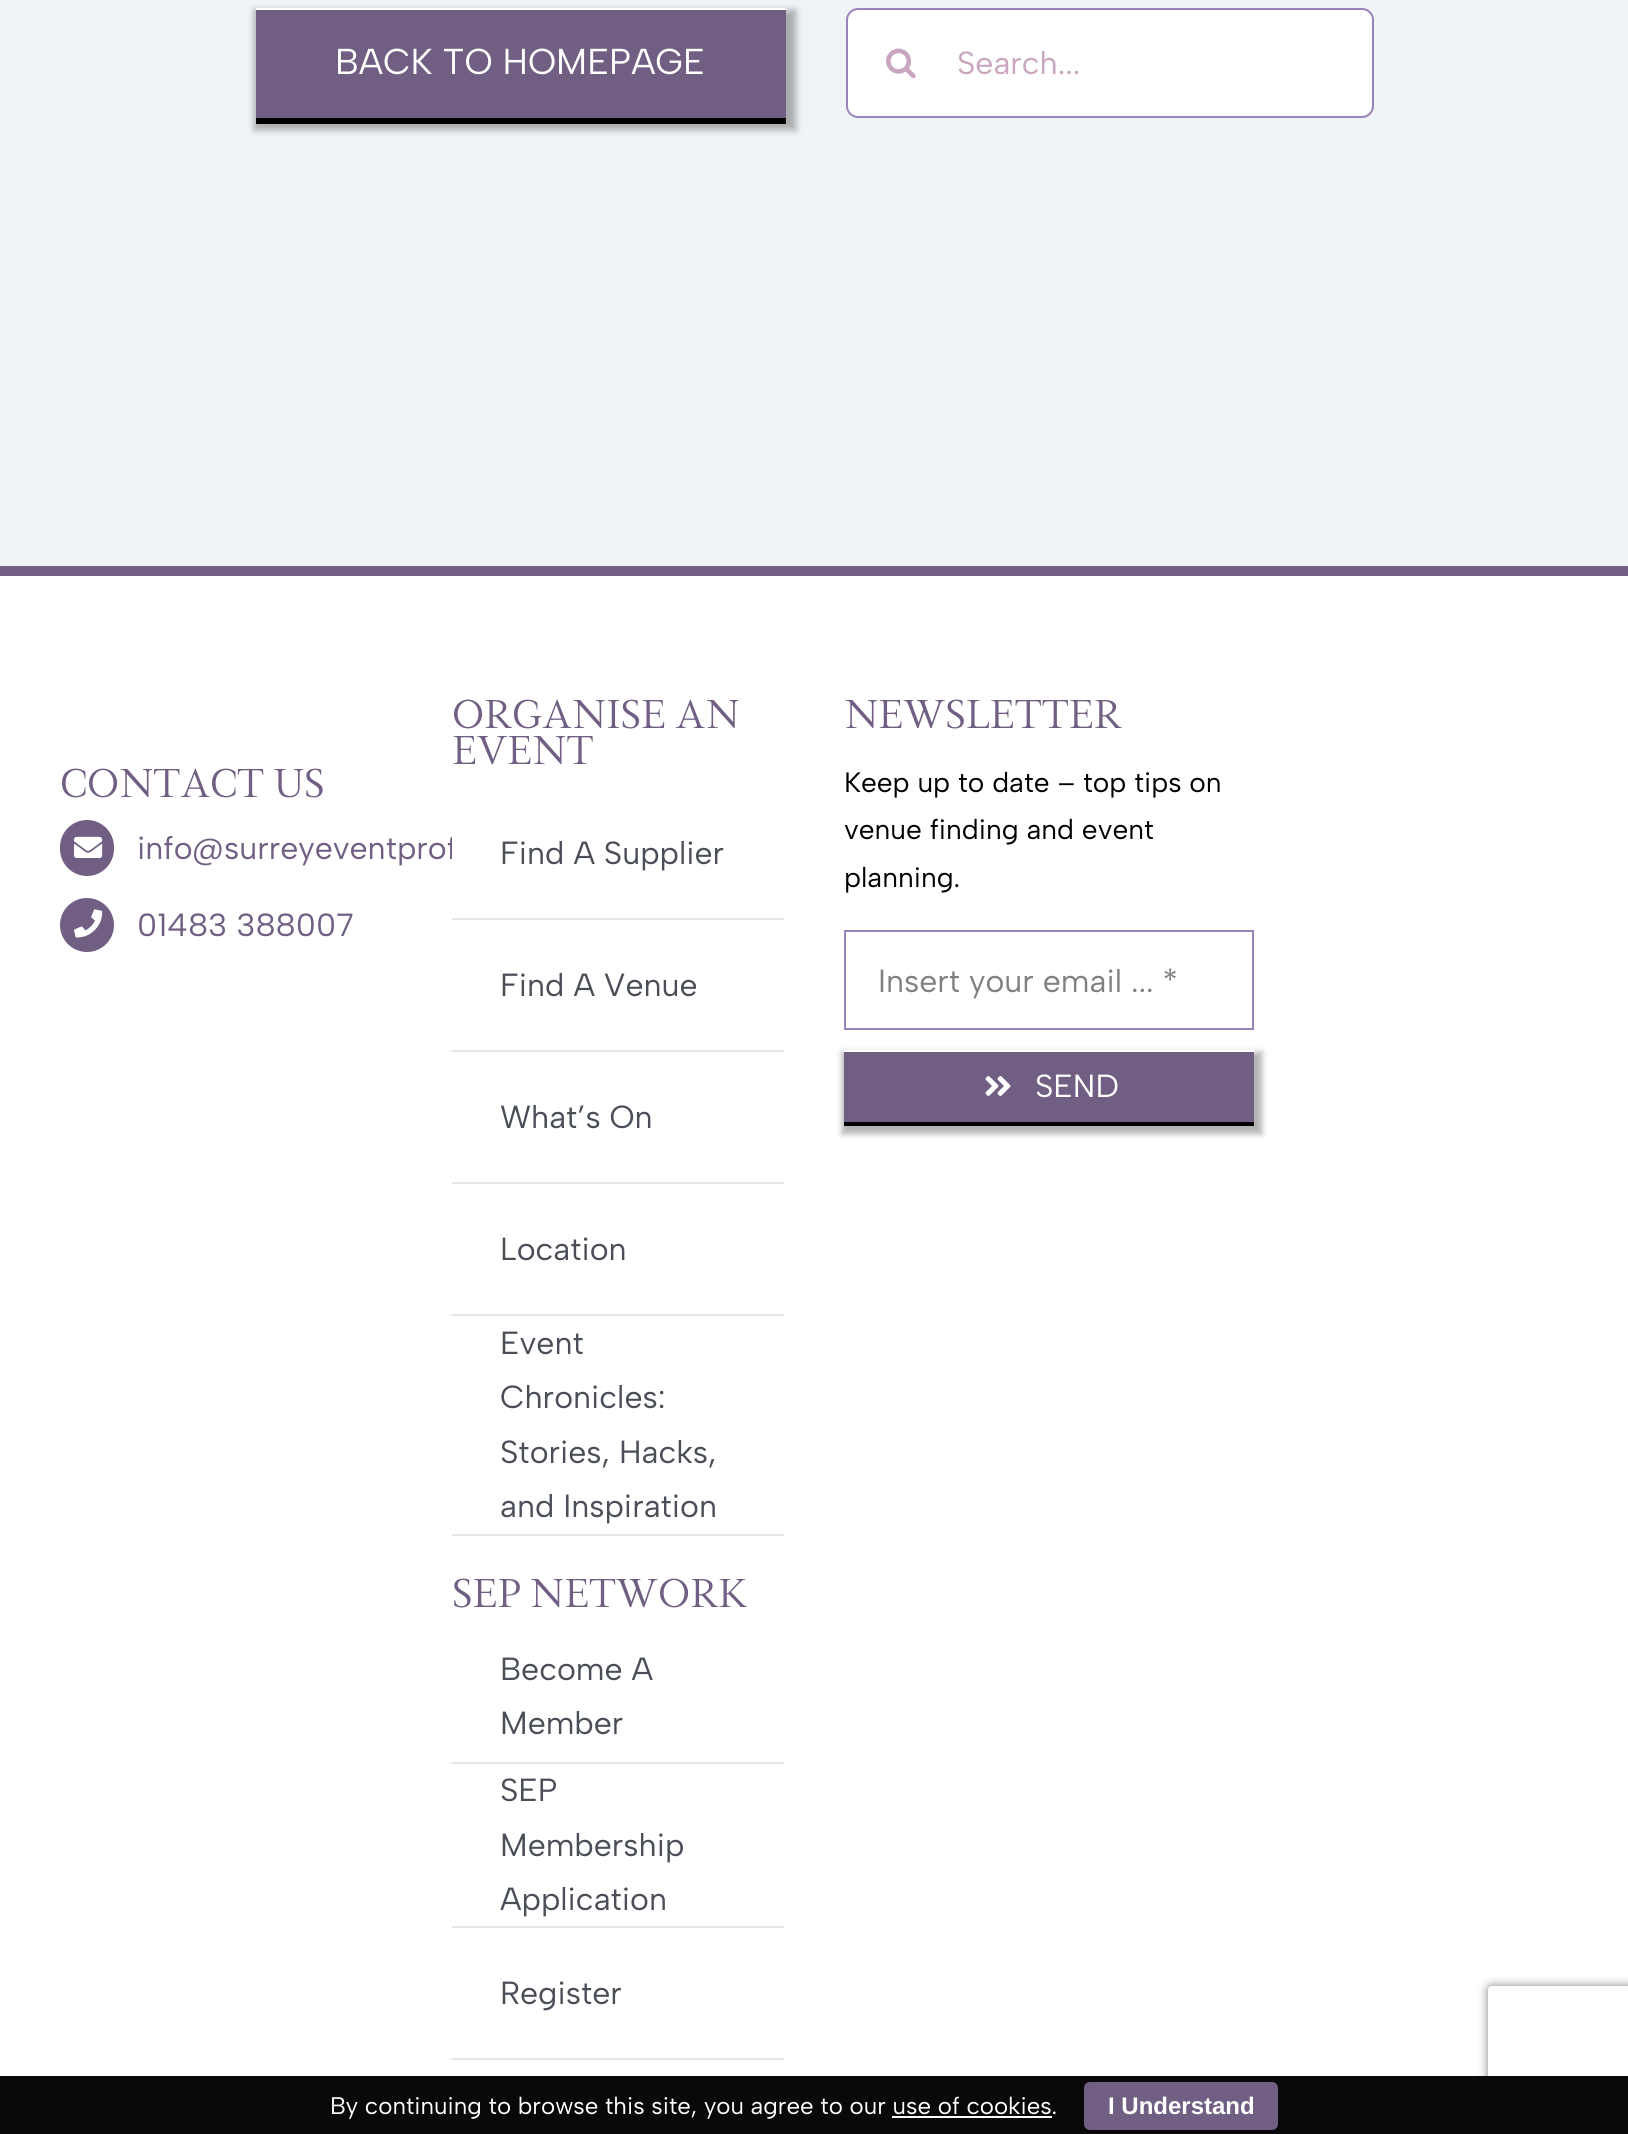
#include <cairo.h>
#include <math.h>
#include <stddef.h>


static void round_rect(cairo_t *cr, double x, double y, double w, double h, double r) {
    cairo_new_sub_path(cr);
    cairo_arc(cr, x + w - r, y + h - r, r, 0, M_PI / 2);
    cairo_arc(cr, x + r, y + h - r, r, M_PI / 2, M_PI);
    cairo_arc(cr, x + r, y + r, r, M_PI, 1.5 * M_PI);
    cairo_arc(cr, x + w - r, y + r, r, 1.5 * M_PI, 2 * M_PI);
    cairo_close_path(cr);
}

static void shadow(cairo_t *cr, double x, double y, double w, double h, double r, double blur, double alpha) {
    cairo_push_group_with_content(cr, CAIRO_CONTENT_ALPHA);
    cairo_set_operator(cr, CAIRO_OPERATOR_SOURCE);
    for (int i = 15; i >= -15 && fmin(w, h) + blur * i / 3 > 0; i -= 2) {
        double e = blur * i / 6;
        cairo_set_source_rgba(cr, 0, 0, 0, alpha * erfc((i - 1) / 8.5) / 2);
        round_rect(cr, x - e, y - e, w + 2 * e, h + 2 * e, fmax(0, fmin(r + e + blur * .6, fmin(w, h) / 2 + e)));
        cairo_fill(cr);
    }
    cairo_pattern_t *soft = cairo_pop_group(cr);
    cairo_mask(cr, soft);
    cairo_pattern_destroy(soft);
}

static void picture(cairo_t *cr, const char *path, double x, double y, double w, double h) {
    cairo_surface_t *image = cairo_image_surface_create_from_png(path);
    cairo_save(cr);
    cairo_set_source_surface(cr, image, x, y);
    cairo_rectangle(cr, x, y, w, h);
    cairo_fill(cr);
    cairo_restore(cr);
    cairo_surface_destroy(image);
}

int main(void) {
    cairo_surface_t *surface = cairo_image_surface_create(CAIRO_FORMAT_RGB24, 1628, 2134);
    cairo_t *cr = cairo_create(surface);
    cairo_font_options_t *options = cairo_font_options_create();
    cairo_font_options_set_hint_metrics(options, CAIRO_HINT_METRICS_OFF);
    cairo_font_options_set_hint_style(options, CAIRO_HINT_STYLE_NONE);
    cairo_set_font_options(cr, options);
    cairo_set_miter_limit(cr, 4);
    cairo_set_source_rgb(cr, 1, 1, 1);
    cairo_paint(cr);
    cairo_set_source_rgb(cr, 0.945, 0.957, 0.961);
    cairo_rectangle(cr, 0, 0, 1628, 566);
    cairo_fill(cr);
    cairo_set_source_rgb(cr, 0, 0, 0);
    shadow(cr, 254, 10, 542, 120, 0, 3.5, 0.3);
    cairo_set_source_rgb(cr, 0, 0, 0);
    cairo_rectangle(cr, 256, 118, 530, 6);
    cairo_fill(cr);
    cairo_set_source_rgb(cr, 0.439, 0.373, 0.514);
    cairo_rectangle(cr, 256, 10, 530, 108);
    cairo_fill(cr);
    cairo_set_source_rgb(cr, 1, 1, 1);
    cairo_rectangle(cr, 256, 8, 530, 2);
    cairo_fill(cr);
    cairo_select_font_face(cr, "Albert Sans", CAIRO_FONT_SLANT_NORMAL, CAIRO_FONT_WEIGHT_NORMAL);
    cairo_set_font_size(cr, 36);
    cairo_move_to(cr, 335, 74);
    cairo_show_text(cr, "BACK TO HOMEPAGE");
    round_rect(cr, 847, 9, 526, 108, 11);
    cairo_fill_preserve(cr);
    cairo_set_source_rgb(cr, 0.596, 0.514, 0.733);
    cairo_stroke(cr);
    picture(cr, "img1.png", 886, 48, 30, 31);
    cairo_set_font_size(cr, 32);
    cairo_set_source_rgb(cr, 0.788, 0.651, 0.753);
    cairo_move_to(cr, 957, 74);
    cairo_show_text(cr, "Search...");
    cairo_set_source_rgb(cr, 0.439, 0.373, 0.514);
    cairo_rectangle(cr, 0, 566, 1628, 10);
    cairo_fill(cr);
    cairo_select_font_face(cr, "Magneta", CAIRO_FONT_SLANT_NORMAL, CAIRO_FONT_WEIGHT_NORMAL);
    cairo_set_font_size(cr, 40);
    cairo_move_to(cr, 60, 797);
    cairo_show_text(cr, "CONTACT US");
    round_rect(cr, 60, 820, 54, 56, 27);
    cairo_fill(cr);
    picture(cr, "img2.png", 74, 836, 29, 22);
    cairo_select_font_face(cr, "Albert Sans", CAIRO_FONT_SLANT_NORMAL, CAIRO_FONT_WEIGHT_NORMAL);
    cairo_set_font_size(cr, 32);
    cairo_move_to(cr, 137, 859);
    cairo_show_text(cr, "info@surreyeventprof");
    cairo_new_path(cr);
    cairo_arc(cr, 87, 925, 27, 0, 2 * M_PI);
    cairo_fill(cr);
    picture(cr, "img3.png", 74, 909, 29, 29);
    cairo_move_to(cr, 137, 936);
    cairo_show_text(cr, "01483 388007");
    cairo_select_font_face(cr, "Magneta", CAIRO_FONT_SLANT_NORMAL, CAIRO_FONT_WEIGHT_NORMAL);
    cairo_set_font_size(cr, 40);
    cairo_move_to(cr, 452, 728);
    cairo_show_text(cr, "ORGANISE AN");
    cairo_move_to(cr, 452, 764);
    cairo_show_text(cr, "EVENT");
    cairo_set_source_rgb(cr, 1, 1, 1);
    cairo_rectangle(cr, 452, 835, 4, 24);
    cairo_fill(cr);
    cairo_set_source_rgb(cr, 0.902, 0.902, 0.902);
    cairo_rectangle(cr, 452, 918, 332, 2);
    cairo_fill(cr);
    cairo_select_font_face(cr, "Albert Sans", CAIRO_FONT_SLANT_NORMAL, CAIRO_FONT_WEIGHT_NORMAL);
    cairo_set_font_size(cr, 32);
    cairo_set_source_rgb(cr, 0.29, 0.306, 0.341);
    cairo_move_to(cr, 500, 864);
    cairo_show_text(cr, "Find A Supplier");
    cairo_set_source_rgb(cr, 0.902, 0.902, 0.902);
    cairo_rectangle(cr, 452, 1050, 332, 2);
    cairo_fill(cr);
    cairo_set_source_rgb(cr, 0.29, 0.306, 0.341);
    cairo_move_to(cr, 500, 996);
    cairo_show_text(cr, "Find A Venue");
    cairo_set_source_rgb(cr, 0.902, 0.902, 0.902);
    cairo_rectangle(cr, 452, 1182, 332, 2);
    cairo_fill(cr);
    cairo_set_source_rgb(cr, 0.29, 0.306, 0.341);
    cairo_move_to(cr, 500, 1128);
    cairo_show_text(cr, "What’s On");
    cairo_set_source_rgb(cr, 0.902, 0.902, 0.902);
    cairo_rectangle(cr, 452, 1314, 332, 2);
    cairo_fill(cr);
    cairo_set_source_rgb(cr, 0.29, 0.306, 0.341);
    cairo_move_to(cr, 500, 1260);
    cairo_show_text(cr, "Location");
    cairo_set_source_rgb(cr, 0.902, 0.902, 0.902);
    cairo_rectangle(cr, 452, 1534, 332, 2);
    cairo_fill(cr);
    cairo_set_source_rgb(cr, 0.29, 0.306, 0.341);
    cairo_move_to(cr, 500, 1354);
    cairo_show_text(cr, "Event");
    cairo_move_to(cr, 500, 1408);
    cairo_show_text(cr, "Chronicles:");
    cairo_move_to(cr, 500, 1463);
    cairo_show_text(cr, "Stories, Hacks,");
    cairo_move_to(cr, 500, 1517);
    cairo_show_text(cr, "and Inspiration");
    cairo_select_font_face(cr, "Magneta", CAIRO_FONT_SLANT_NORMAL, CAIRO_FONT_WEIGHT_NORMAL);
    cairo_set_font_size(cr, 40);
    cairo_set_source_rgb(cr, 0.439, 0.373, 0.514);
    cairo_move_to(cr, 452, 1607);
    cairo_show_text(cr, "SEP NETWORK");
    cairo_set_source_rgb(cr, 0.902, 0.902, 0.902);
    cairo_rectangle(cr, 452, 1762, 332, 2);
    cairo_fill(cr);
    cairo_select_font_face(cr, "Albert Sans", CAIRO_FONT_SLANT_NORMAL, CAIRO_FONT_WEIGHT_NORMAL);
    cairo_set_font_size(cr, 32);
    cairo_set_source_rgb(cr, 0.29, 0.306, 0.341);
    cairo_move_to(cr, 500, 1680);
    cairo_show_text(cr, "Become A");
    cairo_move_to(cr, 500, 1734);
    cairo_show_text(cr, "Member");
    cairo_set_source_rgb(cr, 0.902, 0.902, 0.902);
    cairo_rectangle(cr, 452, 1926, 332, 2);
    cairo_fill(cr);
    cairo_set_source_rgb(cr, 0.29, 0.306, 0.341);
    cairo_move_to(cr, 500, 1801);
    cairo_show_text(cr, "SEP");
    cairo_move_to(cr, 500, 1856);
    cairo_show_text(cr, "Membership");
    cairo_move_to(cr, 500, 1910);
    cairo_show_text(cr, "Application");
    cairo_set_source_rgb(cr, 0.902, 0.902, 0.902);
    cairo_rectangle(cr, 452, 2058, 332, 2);
    cairo_fill(cr);
    cairo_set_source_rgb(cr, 0.29, 0.306, 0.341);
    cairo_move_to(cr, 500, 2004);
    cairo_show_text(cr, "Register");
    cairo_select_font_face(cr, "Magneta", CAIRO_FONT_SLANT_NORMAL, CAIRO_FONT_WEIGHT_NORMAL);
    cairo_set_font_size(cr, 40);
    cairo_set_source_rgb(cr, 0.439, 0.373, 0.514);
    cairo_move_to(cr, 844, 728);
    cairo_show_text(cr, "NEWSLETTER");
    cairo_select_font_face(cr, "Albert Sans", CAIRO_FONT_SLANT_NORMAL, CAIRO_FONT_WEIGHT_NORMAL);
    cairo_set_font_size(cr, 28);
    cairo_set_source_rgb(cr, 0, 0, 0);
    cairo_move_to(cr, 844, 792);
    cairo_show_text(cr, "Keep up to date – top tips on");
    cairo_move_to(cr, 844, 839);
    cairo_show_text(cr, "venue finding and event");
    cairo_move_to(cr, 844, 887);
    cairo_show_text(cr, "planning.");
    cairo_rectangle(cr, 845, 931, 408, 98);
    cairo_set_source_rgb(cr, 0.596, 0.514, 0.733);
    cairo_stroke(cr);
    cairo_set_font_size(cr, 32);
    cairo_set_source_rgb(cr, 0.502, 0.502, 0.502);
    cairo_move_to(cr, 878, 992);
    cairo_show_text(cr, "Insert your email ... *");
    cairo_set_source_rgb(cr, 0, 0, 0);
    shadow(cr, 842, 1052, 420, 82, 0, 3, 0.3);
    cairo_set_source_rgb(cr, 0, 0, 0);
    cairo_rectangle(cr, 844, 1122, 410, 4);
    cairo_fill(cr);
    cairo_set_source_rgb(cr, 0.439, 0.373, 0.514);
    cairo_rectangle(cr, 844, 1052, 410, 70);
    cairo_fill(cr);
    cairo_set_source_rgb(cr, 1, 1, 1);
    cairo_rectangle(cr, 844, 1050, 410, 2);
    cairo_fill(cr);
    picture(cr, "img4.png", 985, 1076, 26, 20);
    cairo_move_to(cr, 1035, 1097);
    cairo_show_text(cr, "SEND");
    cairo_save(cr);
    cairo_set_fill_rule(cr, CAIRO_FILL_RULE_EVEN_ODD);
    cairo_new_path(cr);
    cairo_move_to(cr, 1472, 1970);
    cairo_line_to(cr, 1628, 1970);
    cairo_line_to(cr, 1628, 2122);
    cairo_line_to(cr, 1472, 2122);
    cairo_close_path(cr);
    cairo_move_to(cr, 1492, 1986);
    cairo_line_to(cr, 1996, 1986);
    cairo_curve_to(cr, 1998, 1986, 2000, 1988, 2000, 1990);
    cairo_line_to(cr, 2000, 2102);
    cairo_curve_to(cr, 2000, 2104, 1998, 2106, 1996, 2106);
    cairo_line_to(cr, 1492, 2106);
    cairo_curve_to(cr, 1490, 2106, 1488, 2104, 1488, 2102);
    cairo_line_to(cr, 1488, 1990);
    cairo_curve_to(cr, 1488, 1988, 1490, 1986, 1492, 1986);
    cairo_close_path(cr);
    cairo_clip(cr);
    cairo_set_source_rgb(cr, 0.502, 0.502, 0.502);
    shadow(cr, 1488, 1986, 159, 120, 4, 5, 1);
    cairo_restore(cr);
    cairo_set_source_rgb(cr, 0.039, 0.039, 0.039);
    cairo_rectangle(cr, 0, 2076, 1628, 58);
    cairo_fill(cr);
    cairo_set_font_size(cr, 24);
    cairo_set_source_rgb(cr, 1, 1, 1);
    cairo_move_to(cr, 330, 2114);
    cairo_show_text(cr, "By continuing to browse this site, you agree to our use of cookies.");
    cairo_set_source_rgb(cr, 0.439, 0.373, 0.514);
    round_rect(cr, 1084, 2082, 194, 48, 6);
    cairo_fill(cr);
    cairo_select_font_face(cr, "Liberation Sans", CAIRO_FONT_SLANT_NORMAL, CAIRO_FONT_WEIGHT_BOLD);
    cairo_set_source_rgb(cr, 1, 1, 1);
    cairo_move_to(cr, 1108, 2114);
    cairo_show_text(cr, "I Understand");
    cairo_rectangle(cr, 892, 2116, 160, 2);
    cairo_fill(cr);
    cairo_surface_write_to_png(surface, "page.png");
    cairo_font_options_destroy(options);
    cairo_destroy(cr);
    cairo_surface_destroy(surface);
    return 0;
}
